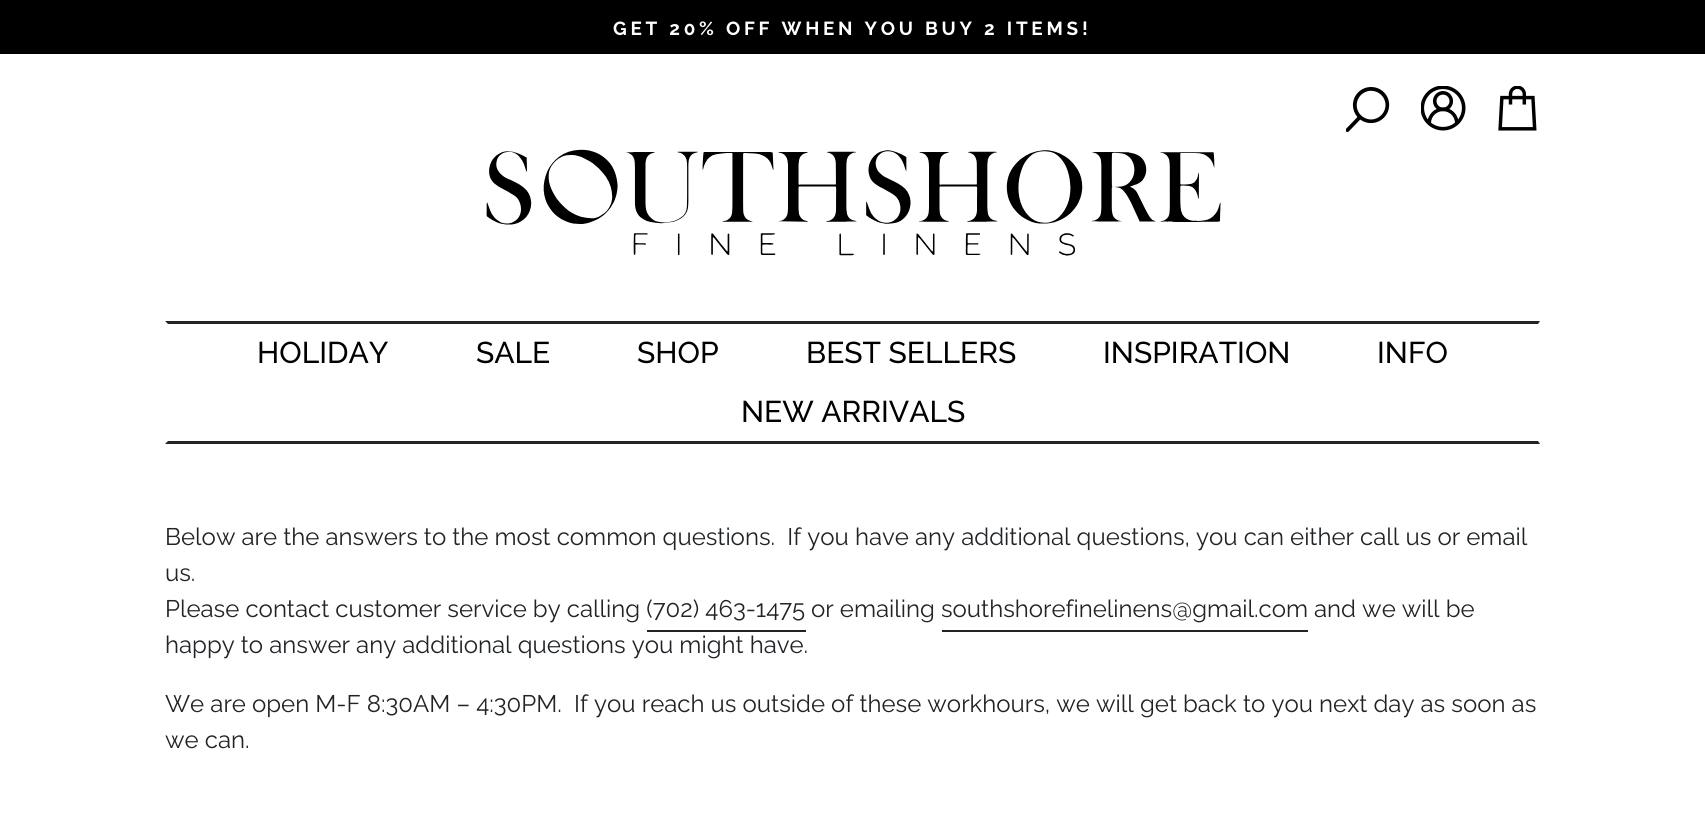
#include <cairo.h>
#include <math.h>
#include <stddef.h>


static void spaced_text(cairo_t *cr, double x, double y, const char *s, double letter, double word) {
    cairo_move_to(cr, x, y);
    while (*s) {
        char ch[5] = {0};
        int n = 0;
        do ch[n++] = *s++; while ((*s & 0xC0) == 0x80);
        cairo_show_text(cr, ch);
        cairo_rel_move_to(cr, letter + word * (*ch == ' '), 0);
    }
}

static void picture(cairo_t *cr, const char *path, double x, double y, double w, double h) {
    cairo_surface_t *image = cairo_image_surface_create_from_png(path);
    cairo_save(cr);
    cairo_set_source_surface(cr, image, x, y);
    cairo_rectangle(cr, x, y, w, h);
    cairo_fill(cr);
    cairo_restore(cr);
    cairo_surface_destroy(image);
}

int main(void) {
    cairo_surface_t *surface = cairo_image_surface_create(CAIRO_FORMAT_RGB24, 1705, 816);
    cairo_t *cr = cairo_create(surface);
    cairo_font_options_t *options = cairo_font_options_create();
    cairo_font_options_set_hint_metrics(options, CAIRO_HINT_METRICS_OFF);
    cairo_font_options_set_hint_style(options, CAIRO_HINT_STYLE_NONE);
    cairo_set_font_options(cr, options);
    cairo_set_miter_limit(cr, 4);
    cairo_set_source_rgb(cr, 1, 1, 1);
    cairo_paint(cr);
    cairo_set_source_rgb(cr, 0, 0, 0);
    cairo_rectangle(cr, 0, 0, 1705, 54);
    cairo_fill(cr);
    cairo_select_font_face(cr, "Raleway", CAIRO_FONT_SLANT_NORMAL, CAIRO_FONT_WEIGHT_BOLD);
    cairo_set_font_size(cr, 18.9);
    cairo_set_source_rgb(cr, 1, 1, 1);
    spaced_text(cr, 613, 35, "GET 20% OFF WHEN YOU BUY 2 ITEMS!", 3.75, 0);
    picture(cr, "img1.png", 1346, 87, 44, 45);
    picture(cr, "img2.png", 1421, 86, 45, 45);
    picture(cr, "img3.png", 1498, 86, 39, 45);
    picture(cr, "img4.png", 486, 149, 735, 107);
    cairo_set_source_rgb(cr, 0.129, 0.141, 0.153);
    cairo_new_path(cr);
    cairo_move_to(cr, 165, 321);
    cairo_line_to(cr, 1540, 321);
    cairo_line_to(cr, 1538, 324);
    cairo_line_to(cr, 168, 324);
    cairo_close_path(cr);
    cairo_fill(cr);
    cairo_new_path(cr);
    cairo_move_to(cr, 1540, 444);
    cairo_line_to(cr, 165, 444);
    cairo_line_to(cr, 168, 441);
    cairo_line_to(cr, 1538, 441);
    cairo_close_path(cr);
    cairo_fill(cr);
    cairo_select_font_face(cr, "Raleway Medium", CAIRO_FONT_SLANT_NORMAL, CAIRO_FONT_WEIGHT_NORMAL);
    cairo_set_font_size(cr, 30);
    cairo_set_source_rgb(cr, 0, 0, 0);
    cairo_move_to(cr, 257, 363);
    cairo_show_text(cr, "HOLIDAY");
    cairo_move_to(cr, 476, 363);
    cairo_show_text(cr, "SALE");
    cairo_move_to(cr, 637, 363);
    cairo_show_text(cr, "SHOP");
    cairo_move_to(cr, 806, 363);
    cairo_show_text(cr, "BEST SELLERS");
    cairo_move_to(cr, 1103, 363);
    cairo_show_text(cr, "INSPIRATION");
    cairo_move_to(cr, 1377, 363);
    cairo_show_text(cr, "INFO");
    cairo_move_to(cr, 741, 422);
    cairo_show_text(cr, "NEW ARRIVALS");
    cairo_select_font_face(cr, "Raleway", CAIRO_FONT_SLANT_NORMAL, CAIRO_FONT_WEIGHT_NORMAL);
    cairo_set_font_size(cr, 24);
    cairo_set_source_rgb(cr, 0.129, 0.141, 0.153);
    cairo_move_to(cr, 165, 545);
    cairo_show_text(cr, "Below are the answers to the most common questions.  If you have any additional questions, you can either call us or email");
    cairo_move_to(cr, 165, 581);
    cairo_show_text(cr, "us.");
    cairo_move_to(cr, 165, 617);
    cairo_show_text(cr, "Please contact customer service by calling (702) 463-1475");
    cairo_move_to(cr, 811, 617);
    cairo_show_text(cr, "or emailing southshorefinelinens@gmail.com");
    cairo_move_to(cr, 1314, 617);
    cairo_show_text(cr, "and we will be");
    cairo_rectangle(cr, 647, 630, 159, 2);
    cairo_fill(cr);
    cairo_rectangle(cr, 942, 630, 366, 2);
    cairo_fill(cr);
    cairo_move_to(cr, 165, 653);
    cairo_show_text(cr, "happy to answer any additional questions you might have.");
    cairo_move_to(cr, 165, 712);
    cairo_show_text(cr, "We are open M-F 8:30AM – 4:30PM.  If you reach us outside of these workhours, we will get back to you next day as soon as");
    cairo_move_to(cr, 165, 748);
    cairo_show_text(cr, "we can.");
    cairo_surface_write_to_png(surface, "page.png");
    cairo_font_options_destroy(options);
    cairo_destroy(cr);
    cairo_surface_destroy(surface);
    return 0;
}
